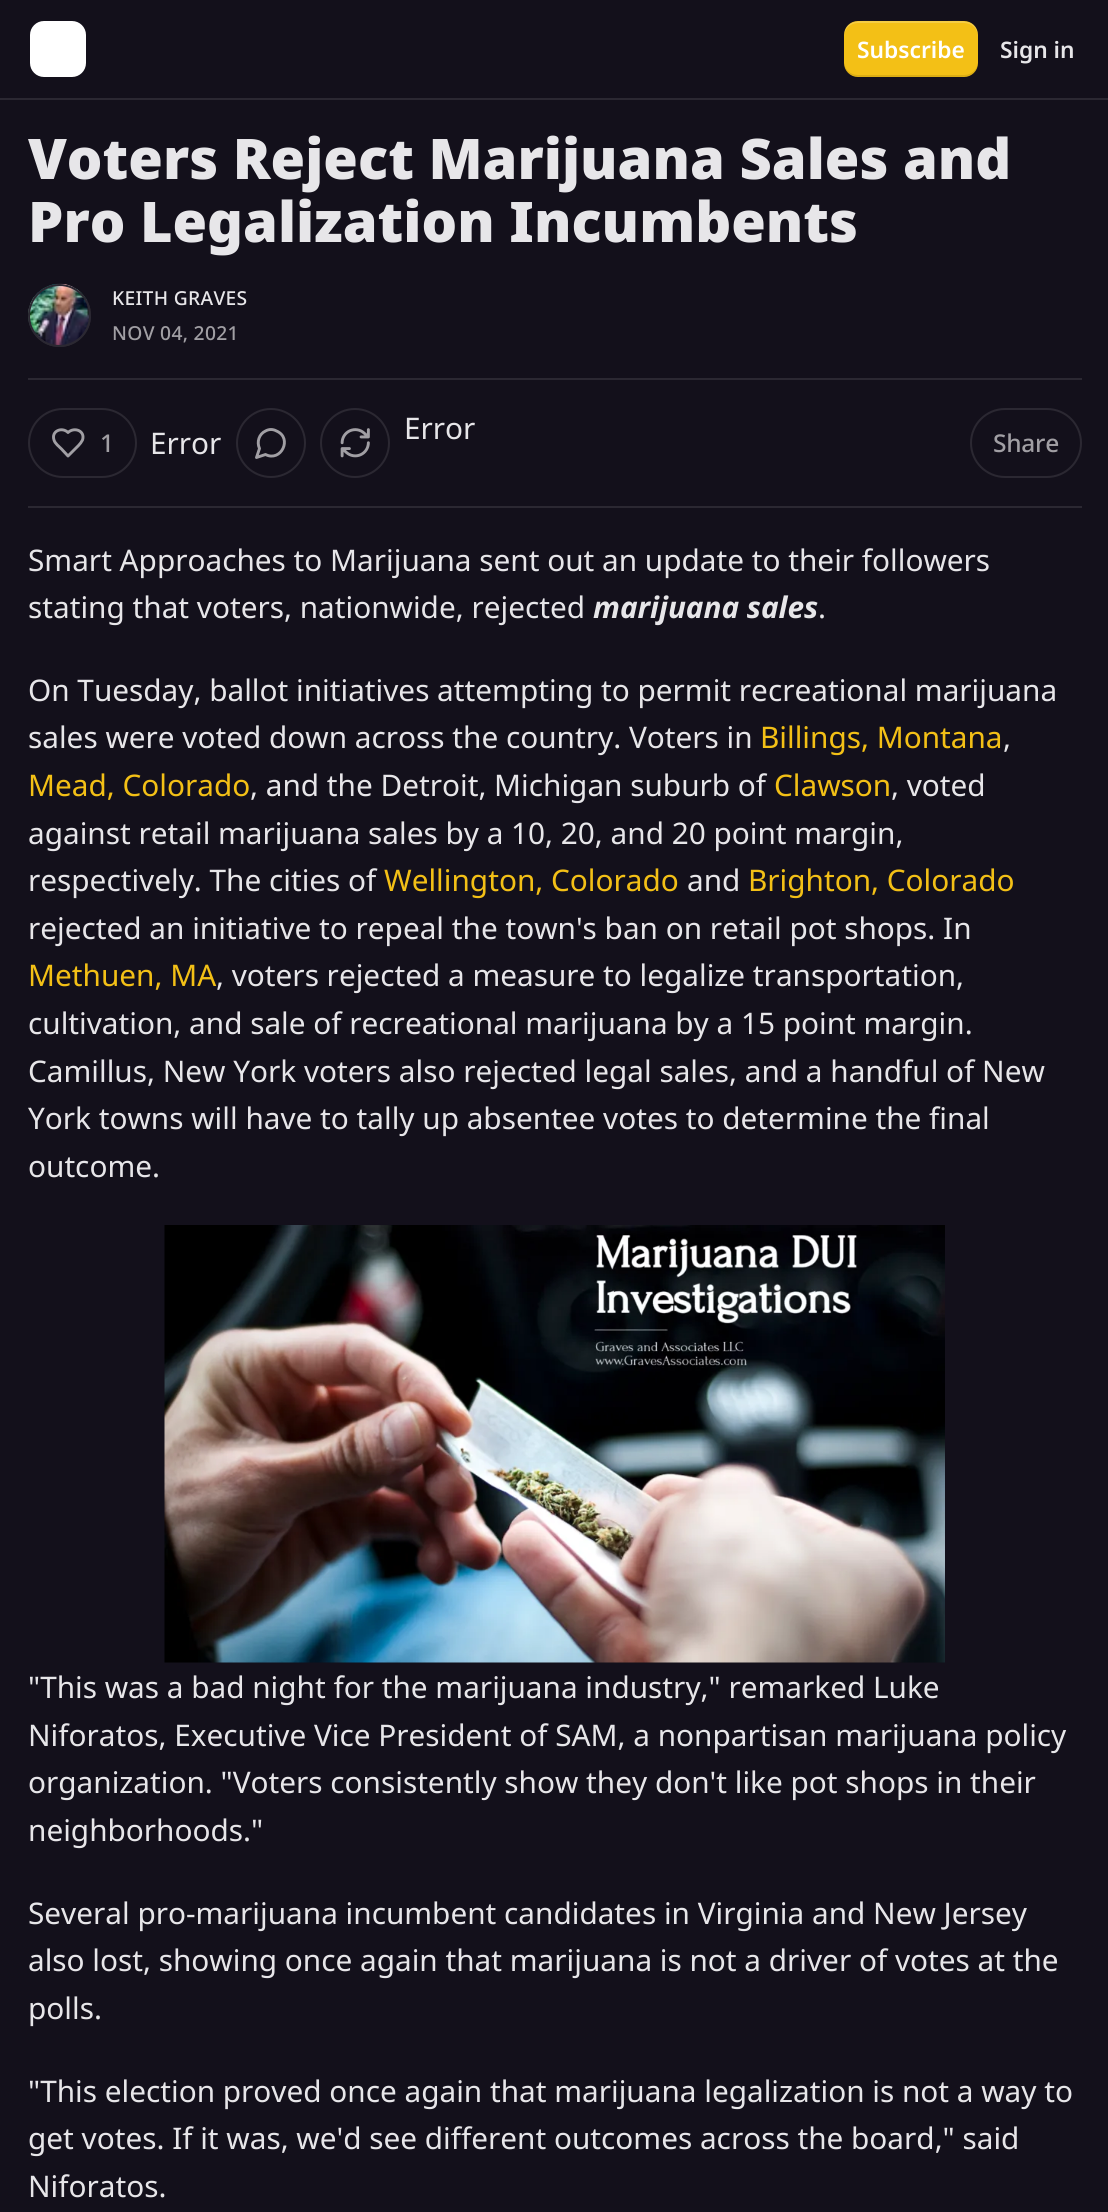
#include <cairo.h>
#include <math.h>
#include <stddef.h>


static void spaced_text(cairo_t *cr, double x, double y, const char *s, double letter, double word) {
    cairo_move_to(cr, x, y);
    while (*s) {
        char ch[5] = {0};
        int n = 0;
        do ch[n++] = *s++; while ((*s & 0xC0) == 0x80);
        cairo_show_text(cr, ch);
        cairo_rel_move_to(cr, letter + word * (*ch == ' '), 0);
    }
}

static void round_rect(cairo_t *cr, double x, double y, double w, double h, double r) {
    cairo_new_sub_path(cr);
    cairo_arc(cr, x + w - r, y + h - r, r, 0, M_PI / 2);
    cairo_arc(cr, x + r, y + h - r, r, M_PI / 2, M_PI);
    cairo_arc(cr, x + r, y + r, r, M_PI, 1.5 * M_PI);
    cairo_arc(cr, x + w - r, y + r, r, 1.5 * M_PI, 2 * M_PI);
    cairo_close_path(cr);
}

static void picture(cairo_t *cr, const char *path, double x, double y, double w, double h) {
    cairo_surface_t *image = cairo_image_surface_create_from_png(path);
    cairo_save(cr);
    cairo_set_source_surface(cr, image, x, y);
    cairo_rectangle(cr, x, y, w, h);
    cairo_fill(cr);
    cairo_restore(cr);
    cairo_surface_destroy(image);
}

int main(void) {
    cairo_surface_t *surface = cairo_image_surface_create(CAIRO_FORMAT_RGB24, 1108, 2212);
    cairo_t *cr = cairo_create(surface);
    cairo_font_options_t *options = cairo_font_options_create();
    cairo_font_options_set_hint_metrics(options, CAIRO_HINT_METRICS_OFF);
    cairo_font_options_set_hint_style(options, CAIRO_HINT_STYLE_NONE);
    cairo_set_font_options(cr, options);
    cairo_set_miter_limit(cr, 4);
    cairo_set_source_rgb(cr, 0.078, 0.063, 0.106);
    cairo_paint(cr);
    cairo_set_source_rgb(cr, 0.169, 0.157, 0.196);
    cairo_rectangle(cr, 0, 98, 1108, 2);
    cairo_fill(cr);
    cairo_set_source_rgb(cr, 1, 1, 1);
    round_rect(cr, 30, 21, 56, 56, 14);
    cairo_fill(cr);
    cairo_set_source_rgb(cr, 0.953, 0.753, 0.086);
    round_rect(cr, 844, 21, 134, 56, 14);
    cairo_fill(cr);
    cairo_set_source_rgba(cr, 0, 0, 0, 0.1);
    cairo_new_path(cr);
    cairo_move_to(cr, 844, 61);
    cairo_curve_to(cr, 844, 80, 861, 77, 876, 77);
    cairo_line_to(cr, 946, 77);
    cairo_curve_to(cr, 961, 77, 978, 80, 978, 61);
    cairo_curve_to(cr, 978, 69, 972, 75, 964, 75);
    cairo_line_to(cr, 858, 75);
    cairo_curve_to(cr, 850, 75, 844, 69, 844, 61);
    cairo_close_path(cr);
    cairo_fill(cr);
    cairo_set_source_rgba(cr, 1, 1, 1, 0.2);
    cairo_new_path(cr);
    cairo_move_to(cr, 858, 23);
    cairo_line_to(cr, 964, 23);
    cairo_curve_to(cr, 972, 23, 978, 29, 978, 37);
    cairo_curve_to(cr, 978, 18, 961, 21, 946, 21);
    cairo_line_to(cr, 876, 21);
    cairo_curve_to(cr, 861, 21, 844, 18, 844, 37);
    cairo_curve_to(cr, 844, 29, 850, 23, 858, 23);
    cairo_close_path(cr);
    cairo_fill(cr);
    cairo_select_font_face(cr, "Noto Sans SemiBold", CAIRO_FONT_SLANT_NORMAL, CAIRO_FONT_WEIGHT_NORMAL);
    cairo_set_font_size(cr, 22.75);
    cairo_set_source_rgb(cr, 1, 1, 1);
    cairo_move_to(cr, 857, 58);
    cairo_show_text(cr, "Subscribe");
    cairo_set_source_rgb(cr, 0.906, 0.902, 0.914);
    cairo_move_to(cr, 1000, 58);
    cairo_show_text(cr, "Sign in");
    cairo_select_font_face(cr, "Noto Sans Black", CAIRO_FONT_SLANT_NORMAL, CAIRO_FONT_WEIGHT_NORMAL);
    cairo_set_font_size(cr, 56);
    cairo_move_to(cr, 28, 179);
    cairo_show_text(cr, "Voters Reject Marijuana Sales and");
    cairo_move_to(cr, 28, 242);
    cairo_show_text(cr, "Pro Legalization Incumbents");
    cairo_new_path(cr);
    cairo_arc(cr, 59.5, 315.5, 30.5, 0, 2 * M_PI);
    cairo_set_source_rgb(cr, 0.169, 0.157, 0.196);
    cairo_stroke(cr);
    picture(cr, "img1.png", 28, 283, 63, 64);
    cairo_arc(cr, 59.5, 315.5, 30.5, 0, 2 * M_PI);
    cairo_stroke(cr);
    cairo_select_font_face(cr, "Noto Sans Medium", CAIRO_FONT_SLANT_NORMAL, CAIRO_FONT_WEIGHT_NORMAL);
    cairo_set_font_size(cr, 19.25);
    cairo_set_source_rgb(cr, 0.906, 0.902, 0.914);
    spaced_text(cr, 112, 305, "KEITH GRAVES", 0.3, 0);
    cairo_set_source_rgb(cr, 0.631, 0.624, 0.643);
    spaced_text(cr, 112, 340, "NOV 04, 2021", 0.3, 0);
    cairo_set_source_rgb(cr, 0.169, 0.157, 0.196);
    cairo_rectangle(cr, 28, 378, 1054, 2);
    cairo_fill(cr);
    cairo_rectangle(cr, 28, 506, 1054, 2);
    cairo_fill(cr);
    cairo_arc(cr, 271, 443, 34, 0, 2 * M_PI);
    cairo_stroke(cr);
    cairo_new_path(cr);
    cairo_move_to(cr, 265.5, 454.5);
    cairo_curve_to(cr, 281, 462.5, 293, 438, 276.5, 431);
    cairo_curve_to(cr, 273, 429, 269, 429, 265.5, 431);
    cairo_curve_to(cr, 259, 434, 256.5, 442, 259.5, 448.5);
    cairo_line_to(cr, 256.5, 457.5);
    cairo_close_path(cr);
    cairo_set_source_rgb(cr, 0.631, 0.624, 0.643);
    cairo_set_line_width(cr, 2.9);
    cairo_set_line_cap(cr, CAIRO_LINE_CAP_ROUND);
    cairo_set_line_join(cr, CAIRO_LINE_JOIN_ROUND);
    cairo_stroke(cr);
    cairo_arc(cr, 355, 443, 34, 0, 2 * M_PI);
    cairo_set_source_rgb(cr, 0.169, 0.157, 0.196);
    cairo_set_line_width(cr, 2);
    cairo_set_line_cap(cr, CAIRO_LINE_CAP_BUTT);
    cairo_set_line_join(cr, CAIRO_LINE_JOIN_MITER);
    cairo_stroke(cr);
    picture(cr, "img2.png", 340, 428, 30, 30);
    cairo_select_font_face(cr, "Noto Sans", CAIRO_FONT_SLANT_NORMAL, CAIRO_FONT_WEIGHT_NORMAL);
    cairo_set_font_size(cr, 29.75);
    cairo_set_source_rgb(cr, 0.906, 0.902, 0.914);
    cairo_move_to(cr, 404, 439);
    cairo_show_text(cr, "Error");
    round_rect(cr, 29, 409, 107, 68, 34);
    cairo_set_source_rgb(cr, 0.169, 0.157, 0.196);
    cairo_stroke(cr);
    cairo_new_path(cr);
    cairo_move_to(cr, 78.5, 445.5);
    cairo_curve_to(cr, 80, 444, 81.5, 442, 82.5, 440);
    cairo_curve_to(cr, 85.5, 431, 74.5, 426.5, 68, 432.5);
    cairo_curve_to(cr, 62, 426.5, 51, 431, 54, 440);
    cairo_curve_to(cr, 55, 443.5, 59, 446.5, 61.5, 449);
    cairo_line_to(cr, 68, 456);
    cairo_close_path(cr);
    cairo_set_source_rgb(cr, 0.631, 0.624, 0.643);
    cairo_set_line_width(cr, 2.9);
    cairo_set_line_cap(cr, CAIRO_LINE_CAP_ROUND);
    cairo_set_line_join(cr, CAIRO_LINE_JOIN_ROUND);
    cairo_stroke(cr);
    cairo_select_font_face(cr, "Noto Sans Medium", CAIRO_FONT_SLANT_NORMAL, CAIRO_FONT_WEIGHT_NORMAL);
    cairo_set_font_size(cr, 24.5);
    spaced_text(cr, 100, 452, "1", -0.25, 0);
    cairo_select_font_face(cr, "Noto Sans", CAIRO_FONT_SLANT_NORMAL, CAIRO_FONT_WEIGHT_NORMAL);
    cairo_set_font_size(cr, 29.75);
    cairo_set_source_rgb(cr, 0.906, 0.902, 0.914);
    cairo_move_to(cr, 150, 454);
    cairo_show_text(cr, "Error");
    round_rect(cr, 971, 409, 110, 68, 34);
    cairo_set_source_rgb(cr, 0.169, 0.157, 0.196);
    cairo_set_line_width(cr, 2);
    cairo_set_line_cap(cr, CAIRO_LINE_CAP_BUTT);
    cairo_set_line_join(cr, CAIRO_LINE_JOIN_MITER);
    cairo_stroke(cr);
    cairo_select_font_face(cr, "Noto Sans Medium", CAIRO_FONT_SLANT_NORMAL, CAIRO_FONT_WEIGHT_NORMAL);
    cairo_set_font_size(cr, 24.5);
    cairo_set_source_rgb(cr, 0.631, 0.624, 0.643);
    spaced_text(cr, 993, 452, "Share", -0.25, 0);
    cairo_select_font_face(cr, "Noto Sans", CAIRO_FONT_SLANT_NORMAL, CAIRO_FONT_WEIGHT_NORMAL);
    cairo_set_font_size(cr, 29.75);
    cairo_set_source_rgb(cr, 0.906, 0.902, 0.914);
    cairo_move_to(cr, 28, 571);
    cairo_show_text(cr, "Smart Approaches to Marijuana sent out an update to their followers");
    cairo_move_to(cr, 28, 618);
    cairo_show_text(cr, "stating that voters, nationwide, rejected");
    cairo_select_font_face(cr, "Noto Sans", CAIRO_FONT_SLANT_ITALIC, CAIRO_FONT_WEIGHT_BOLD);
    cairo_move_to(cr, 593, 618);
    cairo_show_text(cr, "marijuana sales");
    cairo_select_font_face(cr, "Noto Sans", CAIRO_FONT_SLANT_NORMAL, CAIRO_FONT_WEIGHT_NORMAL);
    cairo_move_to(cr, 818, 618);
    cairo_show_text(cr, ".");
    cairo_move_to(cr, 28, 701);
    cairo_show_text(cr, "On Tuesday, ballot initiatives attempting to permit recreational marijuana");
    cairo_move_to(cr, 28, 748);
    cairo_show_text(cr, "sales were voted down across the country. Voters in");
    cairo_set_source_rgb(cr, 0.953, 0.753, 0.086);
    cairo_move_to(cr, 760, 748);
    cairo_show_text(cr, "Billings, Montana");
    cairo_set_source_rgb(cr, 0.906, 0.902, 0.914);
    cairo_move_to(cr, 1003, 748);
    cairo_show_text(cr, ",");
    cairo_set_source_rgb(cr, 0.953, 0.753, 0.086);
    cairo_move_to(cr, 28, 796);
    cairo_show_text(cr, "Mead, Colorado");
    cairo_set_source_rgb(cr, 0.906, 0.902, 0.914);
    cairo_move_to(cr, 250, 796);
    cairo_show_text(cr, ", and the Detroit, Michigan suburb of");
    cairo_set_source_rgb(cr, 0.953, 0.753, 0.086);
    cairo_move_to(cr, 774, 796);
    cairo_show_text(cr, "Clawson");
    cairo_set_source_rgb(cr, 0.906, 0.902, 0.914);
    cairo_move_to(cr, 891, 796);
    cairo_show_text(cr, ", voted");
    cairo_move_to(cr, 28, 844);
    cairo_show_text(cr, "against retail marijuana sales by a 10, 20, and 20 point margin,");
    cairo_move_to(cr, 28, 891);
    cairo_show_text(cr, "respectively. The cities of");
    cairo_set_source_rgb(cr, 0.953, 0.753, 0.086);
    cairo_move_to(cr, 384, 891);
    cairo_show_text(cr, "Wellington, Colorado");
    cairo_set_source_rgb(cr, 0.906, 0.902, 0.914);
    cairo_move_to(cr, 687, 891);
    cairo_show_text(cr, "and");
    cairo_set_source_rgb(cr, 0.953, 0.753, 0.086);
    cairo_move_to(cr, 748, 891);
    cairo_show_text(cr, "Brighton, Colorado");
    cairo_set_source_rgb(cr, 0.906, 0.902, 0.914);
    cairo_move_to(cr, 28, 939);
    cairo_show_text(cr, "rejected an initiative to repeal the town's ban on retail pot shops. In");
    cairo_set_source_rgb(cr, 0.953, 0.753, 0.086);
    cairo_move_to(cr, 28, 986);
    cairo_show_text(cr, "Methuen, MA");
    cairo_set_source_rgb(cr, 0.906, 0.902, 0.914);
    cairo_move_to(cr, 216, 986);
    cairo_show_text(cr, ", voters rejected a measure to legalize transportation,");
    cairo_move_to(cr, 28, 1034);
    cairo_show_text(cr, "cultivation, and sale of recreational marijuana by a 15 point margin.");
    cairo_move_to(cr, 28, 1082);
    cairo_show_text(cr, "Camillus, New York voters also rejected legal sales, and a handful of New");
    cairo_move_to(cr, 28, 1129);
    cairo_show_text(cr, "York towns will have to tally up absentee votes to determine the final");
    cairo_move_to(cr, 28, 1177);
    cairo_show_text(cr, "outcome.");
    picture(cr, "img3.png", 164, 1225, 781, 438);
    cairo_move_to(cr, 28, 1698);
    cairo_show_text(cr, "\"This was a bad night for the marijuana industry,\" remarked Luke");
    cairo_move_to(cr, 28, 1746);
    cairo_show_text(cr, "Niforatos, Executive Vice President of SAM, a nonpartisan marijuana policy");
    cairo_move_to(cr, 28, 1793);
    cairo_show_text(cr, "organization. \"Voters consistently show they don't like pot shops in their");
    cairo_move_to(cr, 28, 1841);
    cairo_show_text(cr, "neighborhoods.\"");
    cairo_move_to(cr, 28, 1924);
    cairo_show_text(cr, "Several pro-marijuana incumbent candidates in Virginia and New Jersey");
    cairo_move_to(cr, 28, 1971);
    cairo_show_text(cr, "also lost, showing once again that marijuana is not a driver of votes at the");
    cairo_move_to(cr, 28, 2019);
    cairo_show_text(cr, "polls.");
    cairo_move_to(cr, 28, 2102);
    cairo_show_text(cr, "\"This election proved once again that marijuana legalization is not a way to");
    cairo_move_to(cr, 28, 2149);
    cairo_show_text(cr, "get votes. If it was, we'd see different outcomes across the board,\" said");
    cairo_move_to(cr, 28, 2197);
    cairo_show_text(cr, "Niforatos.");
    cairo_surface_write_to_png(surface, "page.png");
    cairo_font_options_destroy(options);
    cairo_destroy(cr);
    cairo_surface_destroy(surface);
    return 0;
}
